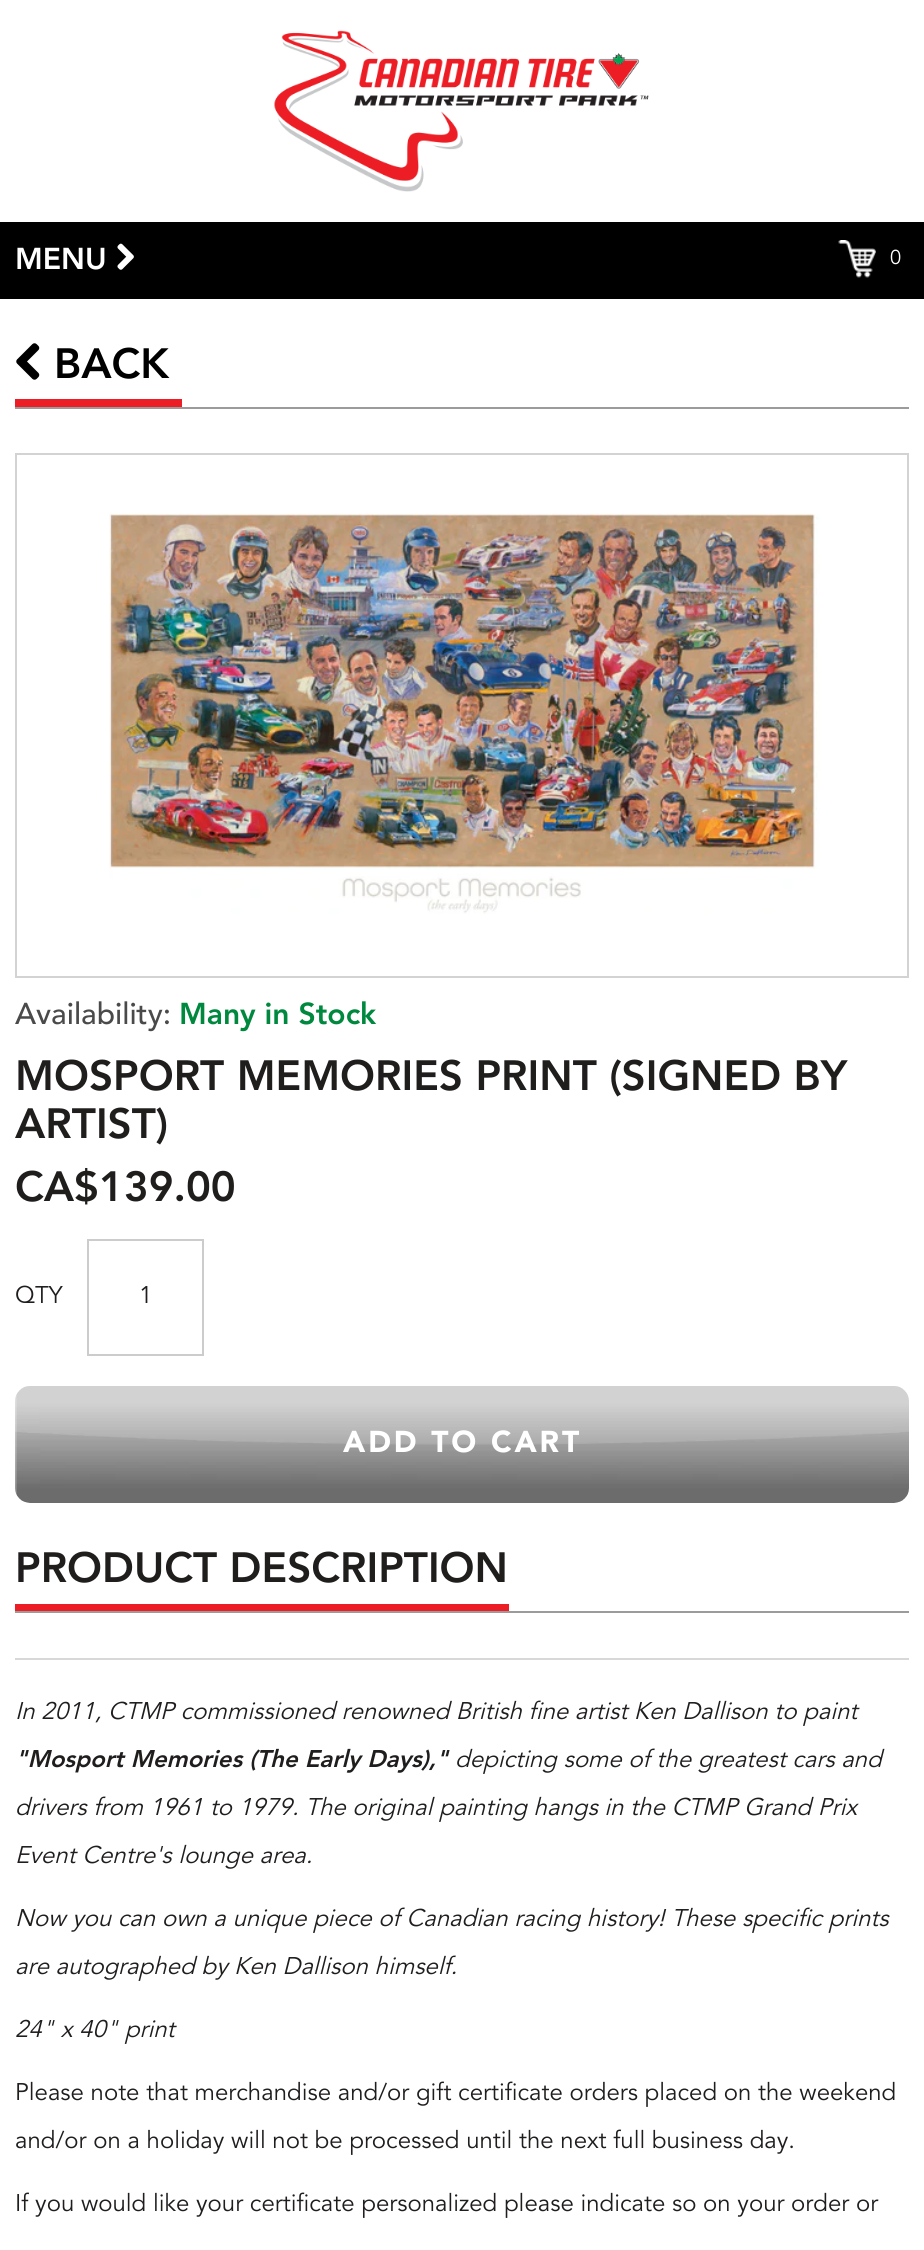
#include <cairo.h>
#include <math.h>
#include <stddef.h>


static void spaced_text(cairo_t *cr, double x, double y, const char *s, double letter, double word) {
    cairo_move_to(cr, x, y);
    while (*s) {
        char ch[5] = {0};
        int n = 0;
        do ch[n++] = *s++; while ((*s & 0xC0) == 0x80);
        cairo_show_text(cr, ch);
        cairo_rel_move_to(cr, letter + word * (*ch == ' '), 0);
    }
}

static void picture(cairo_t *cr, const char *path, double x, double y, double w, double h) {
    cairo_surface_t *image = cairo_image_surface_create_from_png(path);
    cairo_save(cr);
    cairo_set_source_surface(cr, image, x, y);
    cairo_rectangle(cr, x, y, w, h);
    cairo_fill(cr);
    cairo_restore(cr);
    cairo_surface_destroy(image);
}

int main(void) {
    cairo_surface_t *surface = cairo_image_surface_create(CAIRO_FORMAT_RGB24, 924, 2250);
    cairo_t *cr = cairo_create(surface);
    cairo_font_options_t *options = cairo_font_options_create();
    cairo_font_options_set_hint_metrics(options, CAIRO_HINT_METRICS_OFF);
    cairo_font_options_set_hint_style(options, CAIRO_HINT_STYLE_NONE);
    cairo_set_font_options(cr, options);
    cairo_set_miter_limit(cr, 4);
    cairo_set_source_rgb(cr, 1, 1, 1);
    cairo_paint(cr);
    picture(cr, "img1.png", 274, 30, 375, 162);
    cairo_set_source_rgb(cr, 0, 0, 0);
    cairo_rectangle(cr, 0, 222, 924, 77);
    cairo_fill(cr);
    cairo_select_font_face(cr, "Avenir Black", CAIRO_FONT_SLANT_NORMAL, CAIRO_FONT_WEIGHT_NORMAL);
    cairo_set_font_size(cr, 30);
    cairo_set_source_rgb(cr, 1, 1, 1);
    cairo_move_to(cr, 15, 269);
    cairo_show_text(cr, "MENU");
    picture(cr, "img2.png", 117, 243, 17, 27);
    picture(cr, "img3.png", 838, 240, 38, 38);
    cairo_select_font_face(cr, "Avenir", CAIRO_FONT_SLANT_NORMAL, CAIRO_FONT_WEIGHT_NORMAL);
    cairo_set_font_size(cr, 20);
    cairo_move_to(cr, 890, 264);
    cairo_show_text(cr, "0");
    cairo_set_source_rgb(cr, 0.608, 0.608, 0.608);
    cairo_rectangle(cr, 15, 407, 894, 2);
    cairo_fill(cr);
    picture(cr, "img4.png", 16, 343, 24, 37);
    cairo_select_font_face(cr, "Avenir Black", CAIRO_FONT_SLANT_NORMAL, CAIRO_FONT_WEIGHT_NORMAL);
    cairo_set_font_size(cr, 42);
    cairo_set_source_rgb(cr, 0, 0, 0);
    cairo_move_to(cr, 54, 378);
    cairo_show_text(cr, "BACK");
    cairo_set_source_rgb(cr, 0.925, 0.114, 0.141);
    cairo_rectangle(cr, 15, 399, 167, 8);
    cairo_fill(cr);
    cairo_rectangle(cr, 16, 454, 892, 523);
    cairo_set_source_rgb(cr, 0.827, 0.827, 0.827);
    cairo_stroke(cr);
    picture(cr, "img5.png", 109, 513, 711, 401);
    cairo_select_font_face(cr, "Avenir Medium", CAIRO_FONT_SLANT_NORMAL, CAIRO_FONT_WEIGHT_NORMAL);
    cairo_set_font_size(cr, 30);
    cairo_set_source_rgb(cr, 0.29, 0.29, 0.29);
    cairo_move_to(cr, 15, 1024);
    cairo_show_text(cr, "Availability:");
    cairo_select_font_face(cr, "Avenir Black", CAIRO_FONT_SLANT_NORMAL, CAIRO_FONT_WEIGHT_NORMAL);
    cairo_set_source_rgb(cr, 0, 0.533, 0.243);
    cairo_move_to(cr, 179, 1024);
    cairo_show_text(cr, "Many in Stock");
    cairo_set_font_size(cr, 42);
    cairo_set_source_rgb(cr, 0.125, 0.114, 0.114);
    cairo_move_to(cr, 15, 1090);
    cairo_show_text(cr, "MOSPORT MEMORIES PRINT (SIGNED BY");
    cairo_move_to(cr, 15, 1138);
    cairo_show_text(cr, "ARTIST)");
    cairo_move_to(cr, 15, 1201);
    cairo_show_text(cr, "CA$139.00");
    cairo_select_font_face(cr, "Avenir", CAIRO_FONT_SLANT_NORMAL, CAIRO_FONT_WEIGHT_NORMAL);
    cairo_set_font_size(cr, 24);
    cairo_move_to(cr, 15, 1303);
    cairo_show_text(cr, "QTY");
    cairo_rectangle(cr, 88, 1240, 115, 115);
    cairo_set_source_rgb(cr, 0.8, 0.8, 0.8);
    cairo_stroke(cr);
    cairo_set_source_rgb(cr, 0.125, 0.114, 0.114);
    cairo_move_to(cr, 139, 1303);
    cairo_show_text(cr, "1");
    picture(cr, "img6.png", 15, 1386, 894, 117);
    cairo_select_font_face(cr, "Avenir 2 Black", CAIRO_FONT_SLANT_NORMAL, CAIRO_FONT_WEIGHT_NORMAL);
    cairo_set_font_size(cr, 30);
    cairo_set_source_rgb(cr, 1, 1, 1);
    spaced_text(cr, 343, 1452, "ADD TO CART", 2.9, 0);
    cairo_set_source_rgb(cr, 0.608, 0.608, 0.608);
    cairo_rectangle(cr, 15, 1611, 894, 2);
    cairo_fill(cr);
    cairo_select_font_face(cr, "Avenir Black", CAIRO_FONT_SLANT_NORMAL, CAIRO_FONT_WEIGHT_NORMAL);
    cairo_set_font_size(cr, 42);
    cairo_set_source_rgb(cr, 0.125, 0.114, 0.114);
    cairo_move_to(cr, 15, 1582);
    cairo_show_text(cr, "PRODUCT DESCRIPTION");
    cairo_set_source_rgb(cr, 0.925, 0.114, 0.141);
    cairo_rectangle(cr, 15, 1604, 494, 7);
    cairo_fill(cr);
    cairo_set_source_rgb(cr, 0.847, 0.847, 0.847);
    cairo_rectangle(cr, 15, 1658, 894, 2);
    cairo_fill(cr);
    cairo_select_font_face(cr, "Avenir", CAIRO_FONT_SLANT_ITALIC, CAIRO_FONT_WEIGHT_NORMAL);
    cairo_set_font_size(cr, 24);
    cairo_set_source_rgb(cr, 0.125, 0.114, 0.114);
    cairo_move_to(cr, 15, 1719);
    cairo_show_text(cr, "In 2011, CTMP commissioned renowned British fine artist Ken Dallison to paint");
    cairo_select_font_face(cr, "Avenir Black", CAIRO_FONT_SLANT_ITALIC, CAIRO_FONT_WEIGHT_NORMAL);
    cairo_move_to(cr, 15, 1767);
    cairo_show_text(cr, "\"Mosport Memories (The Early Days),\"");
    cairo_select_font_face(cr, "Avenir", CAIRO_FONT_SLANT_ITALIC, CAIRO_FONT_WEIGHT_NORMAL);
    cairo_move_to(cr, 455, 1767);
    cairo_show_text(cr, "depicting some of the greatest cars and");
    cairo_move_to(cr, 15, 1815);
    cairo_show_text(cr, "drivers from 1961 to 1979. The original painting hangs in the CTMP Grand Prix");
    cairo_move_to(cr, 15, 1863);
    cairo_show_text(cr, "Event Centre's lounge area.");
    cairo_move_to(cr, 15, 1926);
    cairo_show_text(cr, "Now you can own a unique piece of Canadian racing history! These specific prints");
    cairo_move_to(cr, 15, 1974);
    cairo_show_text(cr, "are autographed by Ken Dallison himself.");
    cairo_move_to(cr, 15, 2037);
    cairo_show_text(cr, "24\" x 40\" print");
    cairo_select_font_face(cr, "Avenir", CAIRO_FONT_SLANT_NORMAL, CAIRO_FONT_WEIGHT_NORMAL);
    cairo_move_to(cr, 15, 2100);
    cairo_show_text(cr, "Please note that merchandise and/or gift certificate orders placed on the weekend");
    cairo_move_to(cr, 15, 2148);
    cairo_show_text(cr, "and/or on a holiday will not be processed until the next full business day.");
    cairo_move_to(cr, 15, 2211);
    cairo_show_text(cr, "If you would like your certificate personalized please indicate so on your order or");
    cairo_surface_write_to_png(surface, "page.png");
    cairo_font_options_destroy(options);
    cairo_destroy(cr);
    cairo_surface_destroy(surface);
    return 0;
}
